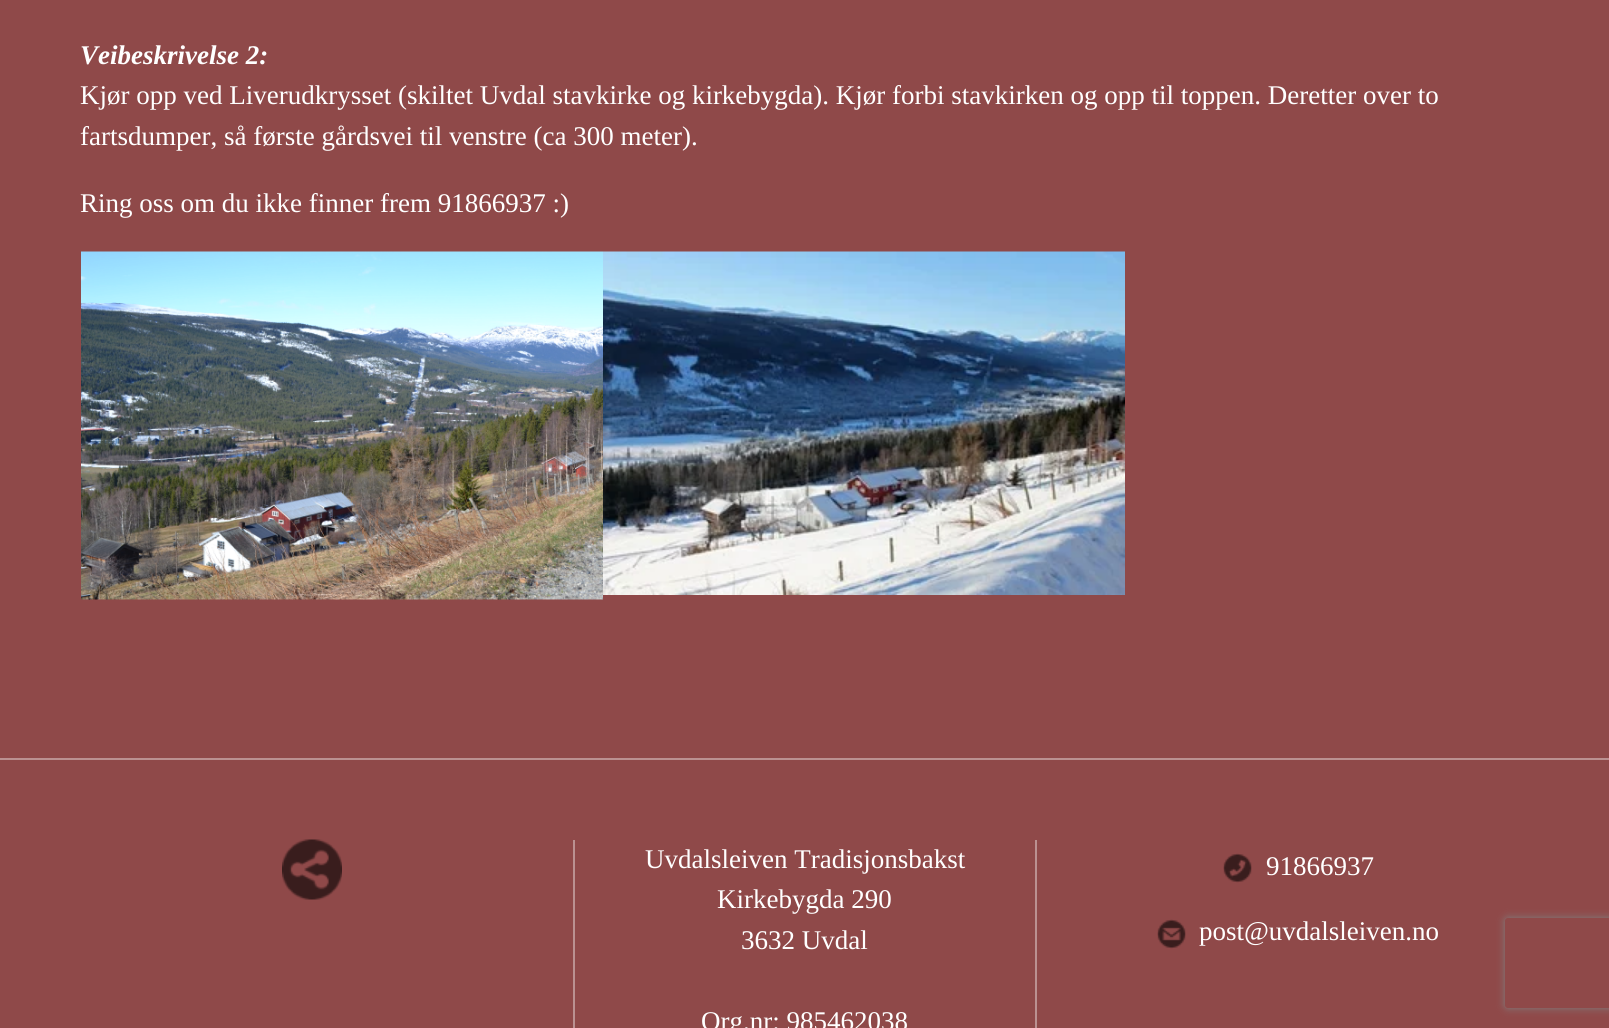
#include <cairo.h>
#include <math.h>
#include <stddef.h>


static void round_rect(cairo_t *cr, double x, double y, double w, double h, double r) {
    cairo_new_sub_path(cr);
    cairo_arc(cr, x + w - r, y + h - r, r, 0, M_PI / 2);
    cairo_arc(cr, x + r, y + h - r, r, M_PI / 2, M_PI);
    cairo_arc(cr, x + r, y + r, r, M_PI, 1.5 * M_PI);
    cairo_arc(cr, x + w - r, y + r, r, 1.5 * M_PI, 2 * M_PI);
    cairo_close_path(cr);
}

static void shadow(cairo_t *cr, double x, double y, double w, double h, double r, double blur, double alpha) {
    cairo_push_group_with_content(cr, CAIRO_CONTENT_ALPHA);
    cairo_set_operator(cr, CAIRO_OPERATOR_SOURCE);
    for (int i = 15; i >= -15 && fmin(w, h) + blur * i / 3 > 0; i -= 2) {
        double e = blur * i / 6;
        cairo_set_source_rgba(cr, 0, 0, 0, alpha * erfc((i - 1) / 8.5) / 2);
        round_rect(cr, x - e, y - e, w + 2 * e, h + 2 * e, fmax(0, fmin(r + e + blur * .6, fmin(w, h) / 2 + e)));
        cairo_fill(cr);
    }
    cairo_pattern_t *soft = cairo_pop_group(cr);
    cairo_mask(cr, soft);
    cairo_pattern_destroy(soft);
}

static void picture(cairo_t *cr, const char *path, double x, double y, double w, double h) {
    cairo_surface_t *image = cairo_image_surface_create_from_png(path);
    cairo_save(cr);
    cairo_set_source_surface(cr, image, x, y);
    cairo_rectangle(cr, x, y, w, h);
    cairo_fill(cr);
    cairo_restore(cr);
    cairo_surface_destroy(image);
}

int main(void) {
    cairo_surface_t *surface = cairo_image_surface_create(CAIRO_FORMAT_RGB24, 1609, 1028);
    cairo_t *cr = cairo_create(surface);
    cairo_font_options_t *options = cairo_font_options_create();
    cairo_font_options_set_hint_metrics(options, CAIRO_HINT_METRICS_OFF);
    cairo_font_options_set_hint_style(options, CAIRO_HINT_STYLE_NONE);
    cairo_set_font_options(cr, options);
    cairo_set_miter_limit(cr, 4);
    cairo_set_source_rgb(cr, 0.561, 0.286, 0.286);
    cairo_paint(cr);
    cairo_select_font_face(cr, "Liberation Serif", CAIRO_FONT_SLANT_ITALIC, CAIRO_FONT_WEIGHT_BOLD);
    cairo_set_font_size(cr, 27);
    cairo_set_source_rgb(cr, 1, 1, 1);
    cairo_move_to(cr, 80, 64);
    cairo_show_text(cr, "Veibeskrivelse 2:");
    cairo_select_font_face(cr, "Liberation Serif", CAIRO_FONT_SLANT_NORMAL, CAIRO_FONT_WEIGHT_NORMAL);
    cairo_move_to(cr, 80, 104);
    cairo_show_text(cr, "Kjør opp ved Liverudkrysset (skiltet Uvdal stavkirke og kirkebygda). Kjør forbi stavkirken og opp til toppen. Deretter over to");
    cairo_move_to(cr, 80, 145);
    cairo_show_text(cr, "fartsdumper, så første gårdsvei til venstre (ca 300 meter).");
    cairo_move_to(cr, 80, 212);
    cairo_show_text(cr, "Ring oss om du ikke finner frem 91866937 :)");
    picture(cr, "img1.png", 81, 251, 522, 349);
    picture(cr, "img2.png", 603, 251, 522, 344);
    cairo_set_source_rgb(cr, 0.733, 0.569, 0.569);
    cairo_rectangle(cr, 0, 758, 1609, 2);
    cairo_fill(cr);
    picture(cr, "img3.png", 282, 839, 60, 61);
    cairo_rectangle(cr, 1035, 840, 2, 188);
    cairo_fill(cr);
    cairo_rectangle(cr, 573, 840, 2, 188);
    cairo_fill(cr);
    cairo_set_source_rgb(cr, 1, 1, 1);
    cairo_move_to(cr, 645, 868);
    cairo_show_text(cr, "Uvdalsleiven Tradisjonsbakst");
    cairo_move_to(cr, 717, 908);
    cairo_show_text(cr, "Kirkebygda 290");
    cairo_move_to(cr, 741, 949);
    cairo_show_text(cr, "3632 Uvdal");
    cairo_move_to(cr, 701, 1030);
    cairo_show_text(cr, "Org.nr: 985462038");
    picture(cr, "img4.png", 1223, 853, 29, 30);
    cairo_move_to(cr, 1266, 875);
    cairo_show_text(cr, "91866937");
    picture(cr, "img5.png", 1157, 919, 29, 30);
    cairo_move_to(cr, 1199, 940);
    cairo_show_text(cr, "post@uvdalsleiven.no");
    cairo_save(cr);
    cairo_set_fill_rule(cr, CAIRO_FILL_RULE_EVEN_ODD);
    cairo_new_path(cr);
    cairo_move_to(cr, 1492, 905);
    cairo_line_to(cr, 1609, 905);
    cairo_line_to(cr, 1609, 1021);
    cairo_line_to(cr, 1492, 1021);
    cairo_close_path(cr);
    cairo_move_to(cr, 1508, 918);
    cairo_line_to(cr, 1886, 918);
    cairo_curve_to(cr, 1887.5, 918, 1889, 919.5, 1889, 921);
    cairo_line_to(cr, 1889, 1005);
    cairo_curve_to(cr, 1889, 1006.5, 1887.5, 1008, 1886, 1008);
    cairo_line_to(cr, 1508, 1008);
    cairo_curve_to(cr, 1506.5, 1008, 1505, 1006.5, 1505, 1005);
    cairo_line_to(cr, 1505, 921);
    cairo_curve_to(cr, 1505, 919.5, 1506.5, 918, 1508, 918);
    cairo_close_path(cr);
    cairo_clip(cr);
    cairo_set_source_rgb(cr, 0.502, 0.502, 0.502);
    shadow(cr, 1505, 918, 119, 90, 3, 4, 1);
    cairo_restore(cr);
    cairo_surface_write_to_png(surface, "page.png");
    cairo_font_options_destroy(options);
    cairo_destroy(cr);
    cairo_surface_destroy(surface);
    return 0;
}
